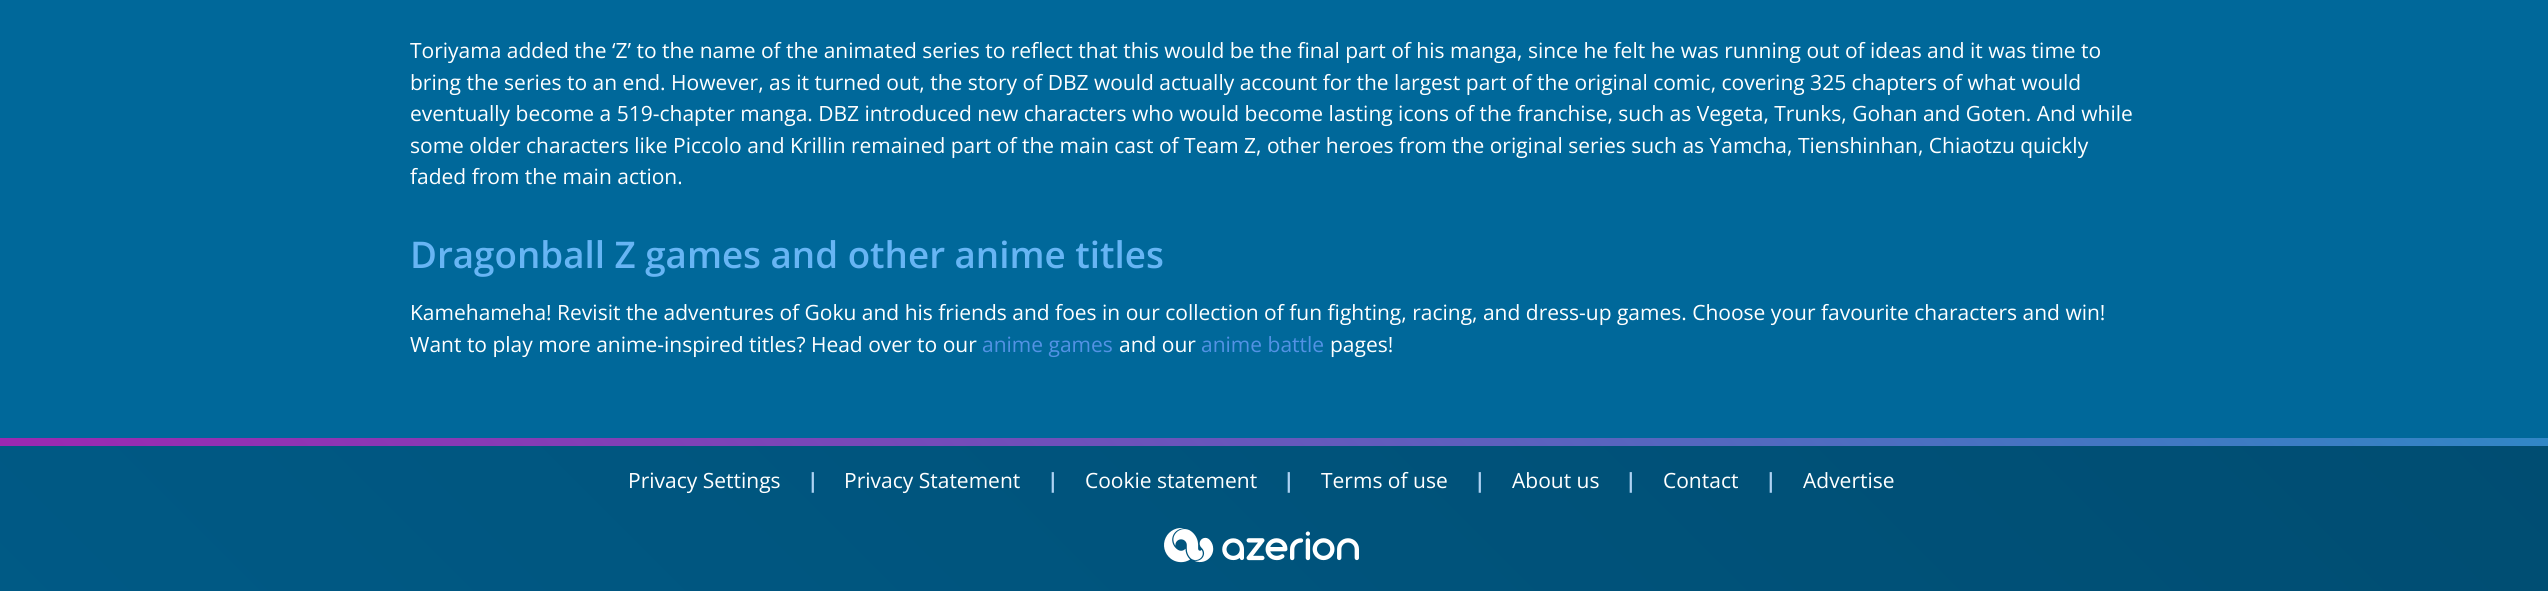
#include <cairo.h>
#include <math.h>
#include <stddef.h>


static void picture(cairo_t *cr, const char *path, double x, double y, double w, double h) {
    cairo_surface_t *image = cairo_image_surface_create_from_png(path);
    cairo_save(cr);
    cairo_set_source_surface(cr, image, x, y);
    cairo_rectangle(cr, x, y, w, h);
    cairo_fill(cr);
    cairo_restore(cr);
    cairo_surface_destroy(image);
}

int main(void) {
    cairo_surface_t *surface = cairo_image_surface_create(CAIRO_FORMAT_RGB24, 2548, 591);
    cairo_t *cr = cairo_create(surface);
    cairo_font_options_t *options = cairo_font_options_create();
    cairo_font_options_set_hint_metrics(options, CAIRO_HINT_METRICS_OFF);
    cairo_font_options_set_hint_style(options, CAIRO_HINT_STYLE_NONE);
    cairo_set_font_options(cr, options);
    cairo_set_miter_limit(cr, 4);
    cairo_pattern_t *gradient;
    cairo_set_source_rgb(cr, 0, 0.408, 0.604);
    cairo_paint(cr);
    cairo_select_font_face(cr, "Open Sans", CAIRO_FONT_SLANT_NORMAL, CAIRO_FONT_WEIGHT_NORMAL);
    cairo_set_font_size(cr, 21);
    cairo_set_source_rgb(cr, 1, 1, 1);
    cairo_move_to(cr, 410, 58);
    cairo_show_text(cr, "Toriyama added the ‘Z’ to the name of the animated series to reflect that this would be the final part of his manga, since he felt he was running out of ideas and it was time to");
    cairo_move_to(cr, 410, 90);
    cairo_show_text(cr, "bring the series to an end. However, as it turned out, the story of DBZ would actually account for the largest part of the original comic, covering 325 chapters of what would");
    cairo_move_to(cr, 410, 121);
    cairo_show_text(cr, "eventually become a 519-chapter manga. DBZ introduced new characters who would become lasting icons of the franchise, such as Vegeta, Trunks, Gohan and Goten. And while");
    cairo_move_to(cr, 410, 153);
    cairo_show_text(cr, "some older characters like Piccolo and Krillin remained part of the main cast of Team Z, other heroes from the original series such as Yamcha, Tienshinhan, Chiaotzu quickly");
    cairo_move_to(cr, 410, 184);
    cairo_show_text(cr, "faded from the main action.");
    cairo_select_font_face(cr, "Open Sans SemiBold", CAIRO_FONT_SLANT_NORMAL, CAIRO_FONT_WEIGHT_NORMAL);
    cairo_set_font_size(cr, 36.75);
    cairo_set_source_rgb(cr, 0.404, 0.71, 0.957);
    cairo_move_to(cr, 410, 268);
    cairo_show_text(cr, "Dragonball Z games and other anime titles");
    cairo_select_font_face(cr, "Open Sans", CAIRO_FONT_SLANT_NORMAL, CAIRO_FONT_WEIGHT_NORMAL);
    cairo_set_font_size(cr, 21);
    cairo_set_source_rgb(cr, 1, 1, 1);
    cairo_move_to(cr, 410, 320);
    cairo_show_text(cr, "Kamehameha! Revisit the adventures of Goku and his friends and foes in our collection of fun fighting, racing, and dress-up games. Choose your favourite characters and win!");
    cairo_move_to(cr, 410, 352);
    cairo_show_text(cr, "Want to play more anime-inspired titles? Head over to our");
    cairo_set_source_rgb(cr, 0.325, 0.573, 0.898);
    cairo_move_to(cr, 982, 352);
    cairo_show_text(cr, "anime games");
    cairo_set_source_rgb(cr, 1, 1, 1);
    cairo_move_to(cr, 1119, 352);
    cairo_show_text(cr, "and our");
    cairo_set_source_rgb(cr, 0.325, 0.573, 0.898);
    cairo_move_to(cr, 1201, 352);
    cairo_show_text(cr, "anime battle");
    cairo_set_source_rgb(cr, 1, 1, 1);
    cairo_move_to(cr, 1330, 352);
    cairo_show_text(cr, "pages!");
    gradient = cairo_pattern_create_linear(584, 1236, 1965, -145);
    cairo_pattern_add_color_stop_rgba(gradient, 0, 0, 0.353, 0.525, 1);
    cairo_pattern_add_color_stop_rgba(gradient, 1, 0, 0.302, 0.447, 1);
    cairo_set_source(cr, gradient);
    cairo_pattern_destroy(gradient);
    cairo_rectangle(cr, 0, 446, 2548, 145);
    cairo_fill(cr);
    gradient = cairo_pattern_create_linear(635, 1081, 1913, -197);
    cairo_pattern_add_color_stop_rgba(gradient, 0, 0.612, 0.157, 0.694, 1);
    cairo_pattern_add_color_stop_rgba(gradient, 1, 0.192, 0.529, 0.776, 1);
    cairo_set_source(cr, gradient);
    cairo_pattern_destroy(gradient);
    cairo_rectangle(cr, 0, 438, 2548, 8);
    cairo_fill(cr);
    cairo_set_source_rgb(cr, 1, 1, 1);
    cairo_move_to(cr, 628, 488);
    cairo_show_text(cr, "Privacy Settings");
    cairo_select_font_face(cr, "Open Sans", CAIRO_FONT_SLANT_NORMAL, CAIRO_FONT_WEIGHT_BOLD);
    cairo_set_source_rgb(cr, 0.682, 0.824, 0.953);
    cairo_move_to(cr, 807, 488);
    cairo_show_text(cr, "|");
    cairo_select_font_face(cr, "Open Sans", CAIRO_FONT_SLANT_NORMAL, CAIRO_FONT_WEIGHT_NORMAL);
    cairo_set_source_rgb(cr, 1, 1, 1);
    cairo_move_to(cr, 844, 488);
    cairo_show_text(cr, "Privacy Statement");
    cairo_select_font_face(cr, "Open Sans", CAIRO_FONT_SLANT_NORMAL, CAIRO_FONT_WEIGHT_BOLD);
    cairo_set_source_rgb(cr, 0.682, 0.824, 0.953);
    cairo_move_to(cr, 1047, 488);
    cairo_show_text(cr, "|");
    cairo_select_font_face(cr, "Open Sans", CAIRO_FONT_SLANT_NORMAL, CAIRO_FONT_WEIGHT_NORMAL);
    cairo_set_source_rgb(cr, 1, 1, 1);
    cairo_move_to(cr, 1085, 488);
    cairo_show_text(cr, "Cookie statement");
    cairo_select_font_face(cr, "Open Sans", CAIRO_FONT_SLANT_NORMAL, CAIRO_FONT_WEIGHT_BOLD);
    cairo_set_source_rgb(cr, 0.682, 0.824, 0.953);
    cairo_move_to(cr, 1283, 488);
    cairo_show_text(cr, "|");
    cairo_select_font_face(cr, "Open Sans", CAIRO_FONT_SLANT_NORMAL, CAIRO_FONT_WEIGHT_NORMAL);
    cairo_set_source_rgb(cr, 1, 1, 1);
    cairo_move_to(cr, 1321, 488);
    cairo_show_text(cr, "Terms of use");
    cairo_select_font_face(cr, "Open Sans", CAIRO_FONT_SLANT_NORMAL, CAIRO_FONT_WEIGHT_BOLD);
    cairo_set_source_rgb(cr, 0.682, 0.824, 0.953);
    cairo_move_to(cr, 1474, 488);
    cairo_show_text(cr, "|");
    cairo_select_font_face(cr, "Open Sans", CAIRO_FONT_SLANT_NORMAL, CAIRO_FONT_WEIGHT_NORMAL);
    cairo_set_source_rgb(cr, 1, 1, 1);
    cairo_move_to(cr, 1512, 488);
    cairo_show_text(cr, "About us");
    cairo_select_font_face(cr, "Open Sans", CAIRO_FONT_SLANT_NORMAL, CAIRO_FONT_WEIGHT_BOLD);
    cairo_set_source_rgb(cr, 0.682, 0.824, 0.953);
    cairo_move_to(cr, 1625, 488);
    cairo_show_text(cr, "|");
    cairo_select_font_face(cr, "Open Sans", CAIRO_FONT_SLANT_NORMAL, CAIRO_FONT_WEIGHT_NORMAL);
    cairo_set_source_rgb(cr, 1, 1, 1);
    cairo_move_to(cr, 1663, 488);
    cairo_show_text(cr, "Contact");
    cairo_select_font_face(cr, "Open Sans", CAIRO_FONT_SLANT_NORMAL, CAIRO_FONT_WEIGHT_BOLD);
    cairo_set_source_rgb(cr, 0.682, 0.824, 0.953);
    cairo_move_to(cr, 1765, 488);
    cairo_show_text(cr, "|");
    cairo_select_font_face(cr, "Open Sans", CAIRO_FONT_SLANT_NORMAL, CAIRO_FONT_WEIGHT_NORMAL);
    cairo_set_source_rgb(cr, 1, 1, 1);
    cairo_move_to(cr, 1803, 488);
    cairo_show_text(cr, "Advertise");
    picture(cr, "img1.png", 1164, 528, 195, 35);
    cairo_surface_write_to_png(surface, "page.png");
    cairo_font_options_destroy(options);
    cairo_destroy(cr);
    cairo_surface_destroy(surface);
    return 0;
}
